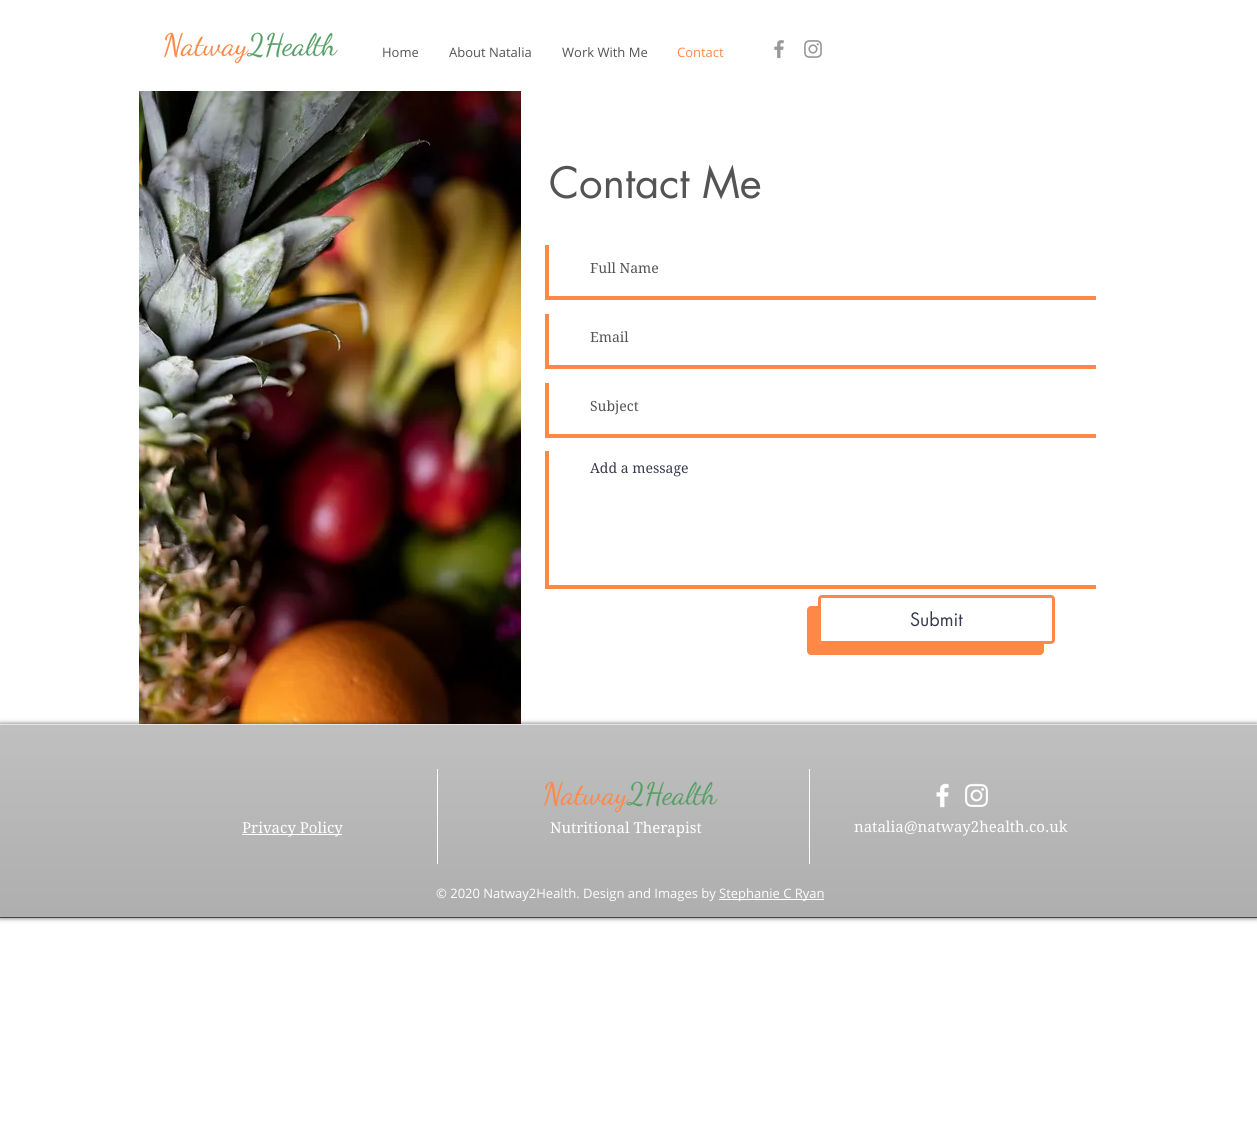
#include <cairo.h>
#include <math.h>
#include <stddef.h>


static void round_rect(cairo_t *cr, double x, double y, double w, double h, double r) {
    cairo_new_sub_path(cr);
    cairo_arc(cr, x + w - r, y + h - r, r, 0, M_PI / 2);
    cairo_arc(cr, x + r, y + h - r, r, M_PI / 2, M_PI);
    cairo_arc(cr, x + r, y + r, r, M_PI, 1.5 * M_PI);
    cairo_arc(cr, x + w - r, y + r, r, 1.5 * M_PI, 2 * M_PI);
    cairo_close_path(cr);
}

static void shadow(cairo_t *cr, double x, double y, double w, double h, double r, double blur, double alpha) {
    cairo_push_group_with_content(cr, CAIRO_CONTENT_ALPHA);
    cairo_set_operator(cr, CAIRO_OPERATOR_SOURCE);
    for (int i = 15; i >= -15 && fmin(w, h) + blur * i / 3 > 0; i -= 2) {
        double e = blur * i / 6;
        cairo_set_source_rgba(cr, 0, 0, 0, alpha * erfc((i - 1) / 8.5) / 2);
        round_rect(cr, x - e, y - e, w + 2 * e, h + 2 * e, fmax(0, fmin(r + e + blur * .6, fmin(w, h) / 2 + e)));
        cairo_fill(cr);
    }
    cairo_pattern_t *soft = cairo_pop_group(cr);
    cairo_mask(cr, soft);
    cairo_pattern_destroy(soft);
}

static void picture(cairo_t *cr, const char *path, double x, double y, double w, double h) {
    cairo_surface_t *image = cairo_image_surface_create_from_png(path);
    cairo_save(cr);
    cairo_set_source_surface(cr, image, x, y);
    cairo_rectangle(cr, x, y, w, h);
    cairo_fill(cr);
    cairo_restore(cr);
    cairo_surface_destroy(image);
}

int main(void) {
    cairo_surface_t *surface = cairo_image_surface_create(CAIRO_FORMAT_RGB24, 1257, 1122);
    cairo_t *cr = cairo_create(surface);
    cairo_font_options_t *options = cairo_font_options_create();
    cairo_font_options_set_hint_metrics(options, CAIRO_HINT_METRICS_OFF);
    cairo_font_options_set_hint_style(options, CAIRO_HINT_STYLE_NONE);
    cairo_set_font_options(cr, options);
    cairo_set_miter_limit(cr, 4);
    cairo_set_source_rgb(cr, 1, 1, 1);
    cairo_paint(cr);
    picture(cr, "img1.png", 163, 32, 175, 32);
    cairo_select_font_face(cr, "Open Sans", CAIRO_FONT_SLANT_NORMAL, CAIRO_FONT_WEIGHT_NORMAL);
    cairo_set_font_size(cr, 13);
    cairo_set_source_rgb(cr, 0.333, 0.325, 0.325);
    cairo_move_to(cr, 382, 57);
    cairo_show_text(cr, "Home");
    cairo_move_to(cr, 449, 57);
    cairo_show_text(cr, "About Natalia");
    cairo_move_to(cr, 562, 57);
    cairo_show_text(cr, "Work With Me");
    cairo_set_source_rgb(cr, 1, 0.533, 0.278);
    cairo_move_to(cr, 677, 57);
    cairo_show_text(cr, "Contact");
    picture(cr, "img2.png", 774, 40, 10, 19);
    picture(cr, "img3.png", 804, 40, 18, 18);
    picture(cr, "img4.png", 139, 91, 382, 633);
    cairo_select_font_face(cr, "futura", CAIRO_FONT_SLANT_NORMAL, CAIRO_FONT_WEIGHT_NORMAL);
    cairo_set_font_size(cr, 42);
    cairo_set_source_rgb(cr, 0.333, 0.325, 0.325);
    cairo_move_to(cr, 549, 198);
    cairo_show_text(cr, "Contact Me");
    cairo_set_source_rgb(cr, 1, 0.533, 0.278);
    cairo_new_path(cr);
    cairo_move_to(cr, 545, 245);
    cairo_line_to(cr, 545, 300);
    cairo_line_to(cr, 1096, 300);
    cairo_line_to(cr, 1096, 296);
    cairo_line_to(cr, 549, 296);
    cairo_line_to(cr, 549, 245);
    cairo_close_path(cr);
    cairo_fill(cr);
    cairo_select_font_face(cr, "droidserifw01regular", CAIRO_FONT_SLANT_NORMAL, CAIRO_FONT_WEIGHT_NORMAL);
    cairo_set_font_size(cr, 14);
    cairo_set_source_rgb(cr, 0.333, 0.325, 0.325);
    cairo_move_to(cr, 590, 273);
    cairo_show_text(cr, "Full Name");
    cairo_set_source_rgb(cr, 1, 0.533, 0.278);
    cairo_new_path(cr);
    cairo_move_to(cr, 545, 314);
    cairo_line_to(cr, 545, 369);
    cairo_line_to(cr, 1096, 369);
    cairo_line_to(cr, 1096, 365);
    cairo_line_to(cr, 549, 365);
    cairo_line_to(cr, 549, 314);
    cairo_close_path(cr);
    cairo_fill(cr);
    cairo_set_source_rgb(cr, 0.333, 0.325, 0.325);
    cairo_move_to(cr, 590, 342);
    cairo_show_text(cr, "Email");
    cairo_set_source_rgb(cr, 1, 0.533, 0.278);
    cairo_new_path(cr);
    cairo_move_to(cr, 545, 383);
    cairo_line_to(cr, 545, 438);
    cairo_line_to(cr, 1096, 438);
    cairo_line_to(cr, 1096, 434);
    cairo_line_to(cr, 549, 434);
    cairo_line_to(cr, 549, 383);
    cairo_close_path(cr);
    cairo_fill(cr);
    cairo_set_source_rgb(cr, 0.333, 0.325, 0.325);
    cairo_move_to(cr, 590, 411);
    cairo_show_text(cr, "Subject");
    cairo_set_source_rgb(cr, 1, 0.533, 0.278);
    cairo_new_path(cr);
    cairo_move_to(cr, 545, 451);
    cairo_line_to(cr, 545, 589);
    cairo_line_to(cr, 1096, 589);
    cairo_line_to(cr, 1096, 585);
    cairo_line_to(cr, 549, 585);
    cairo_line_to(cr, 549, 451);
    cairo_close_path(cr);
    cairo_fill(cr);
    cairo_set_source_rgb(cr, 0.216, 0.231, 0.302);
    cairo_move_to(cr, 590, 473);
    cairo_show_text(cr, "Add a message");
    cairo_set_source_rgb(cr, 1, 0.533, 0.278);
    cairo_new_path(cr);
    cairo_move_to(cr, 811, 606);
    cairo_curve_to(cr, 809, 606, 807, 608, 807, 610);
    cairo_line_to(cr, 807, 651);
    cairo_curve_to(cr, 807, 653, 809, 655, 811, 655);
    cairo_line_to(cr, 1040, 655);
    cairo_curve_to(cr, 1042, 655, 1044, 653, 1044, 651);
    cairo_line_to(cr, 1044, 644);
    cairo_line_to(cr, 822, 644);
    cairo_curve_to(cr, 820, 644, 818, 642, 818, 640);
    cairo_line_to(cr, 818, 606);
    cairo_close_path(cr);
    cairo_fill(cr);
    cairo_set_source_rgb(cr, 1, 1, 1);
    round_rect(cr, 819.5, 596.5, 234, 46, 2.5);
    cairo_fill_preserve(cr);
    cairo_set_source_rgb(cr, 1, 0.533, 0.278);
    cairo_set_line_width(cr, 3);
    cairo_stroke(cr);
    cairo_select_font_face(cr, "futura", CAIRO_FONT_SLANT_NORMAL, CAIRO_FONT_WEIGHT_NORMAL);
    cairo_set_font_size(cr, 18);
    cairo_set_source_rgb(cr, 0.216, 0.231, 0.302);
    cairo_move_to(cr, 910, 626);
    cairo_show_text(cr, "Submit");
    cairo_set_source_rgb(cr, 0, 0, 0);
    shadow(cr, 0, 724, 1257, 194, 0, 2.5, 0.6);
    cairo_set_source_rgb(cr, 0.667, 0.663, 0.663);
    cairo_rectangle(cr, 0, 725, 1257, 192);
    cairo_fill(cr);
    picture(cr, "img5.png", 0, 725, 1257, 192);
    cairo_set_source_rgb(cr, 0.275, 0.275, 0.275);
    cairo_rectangle(cr, 0, 917, 1257, 1);
    cairo_fill(cr);
    cairo_set_source_rgb(cr, 0.902, 0.902, 0.902);
    cairo_rectangle(cr, 0, 724, 1257, 1);
    cairo_fill(cr);
    cairo_set_source_rgb(cr, 1, 1, 1);
    cairo_rectangle(cr, 437, 769, 1, 95);
    cairo_fill(cr);
    picture(cr, "img6.png", 544, 781, 174, 32);
    cairo_rectangle(cr, 809, 769, 1, 95);
    cairo_fill(cr);
    picture(cr, "img7.png", 936, 783, 13, 25);
    picture(cr, "img8.png", 964, 783, 24, 24);
    cairo_rectangle(cr, 242, 834, 100, 1);
    cairo_fill(cr);
    cairo_select_font_face(cr, "droidserifw01regular", CAIRO_FONT_SLANT_NORMAL, CAIRO_FONT_WEIGHT_NORMAL);
    cairo_set_font_size(cr, 15);
    cairo_move_to(cr, 242, 833);
    cairo_show_text(cr, "Privacy Policy");
    cairo_move_to(cr, 550, 833);
    cairo_show_text(cr, "Nutritional Therapist");
    cairo_move_to(cr, 854, 832);
    cairo_show_text(cr, "natalia@natway2health.co.uk");
    cairo_select_font_face(cr, "Open Sans", CAIRO_FONT_SLANT_NORMAL, CAIRO_FONT_WEIGHT_NORMAL);
    cairo_set_font_size(cr, 13);
    cairo_move_to(cr, 436, 898);
    cairo_show_text(cr, "© 2020 Natway2Health. Design and Images by");
    cairo_rectangle(cr, 719, 899, 105, 1);
    cairo_fill(cr);
    cairo_move_to(cr, 719, 898);
    cairo_show_text(cr, "Stephanie C Ryan");
    cairo_surface_write_to_png(surface, "page.png");
    cairo_font_options_destroy(options);
    cairo_destroy(cr);
    cairo_surface_destroy(surface);
    return 0;
}
